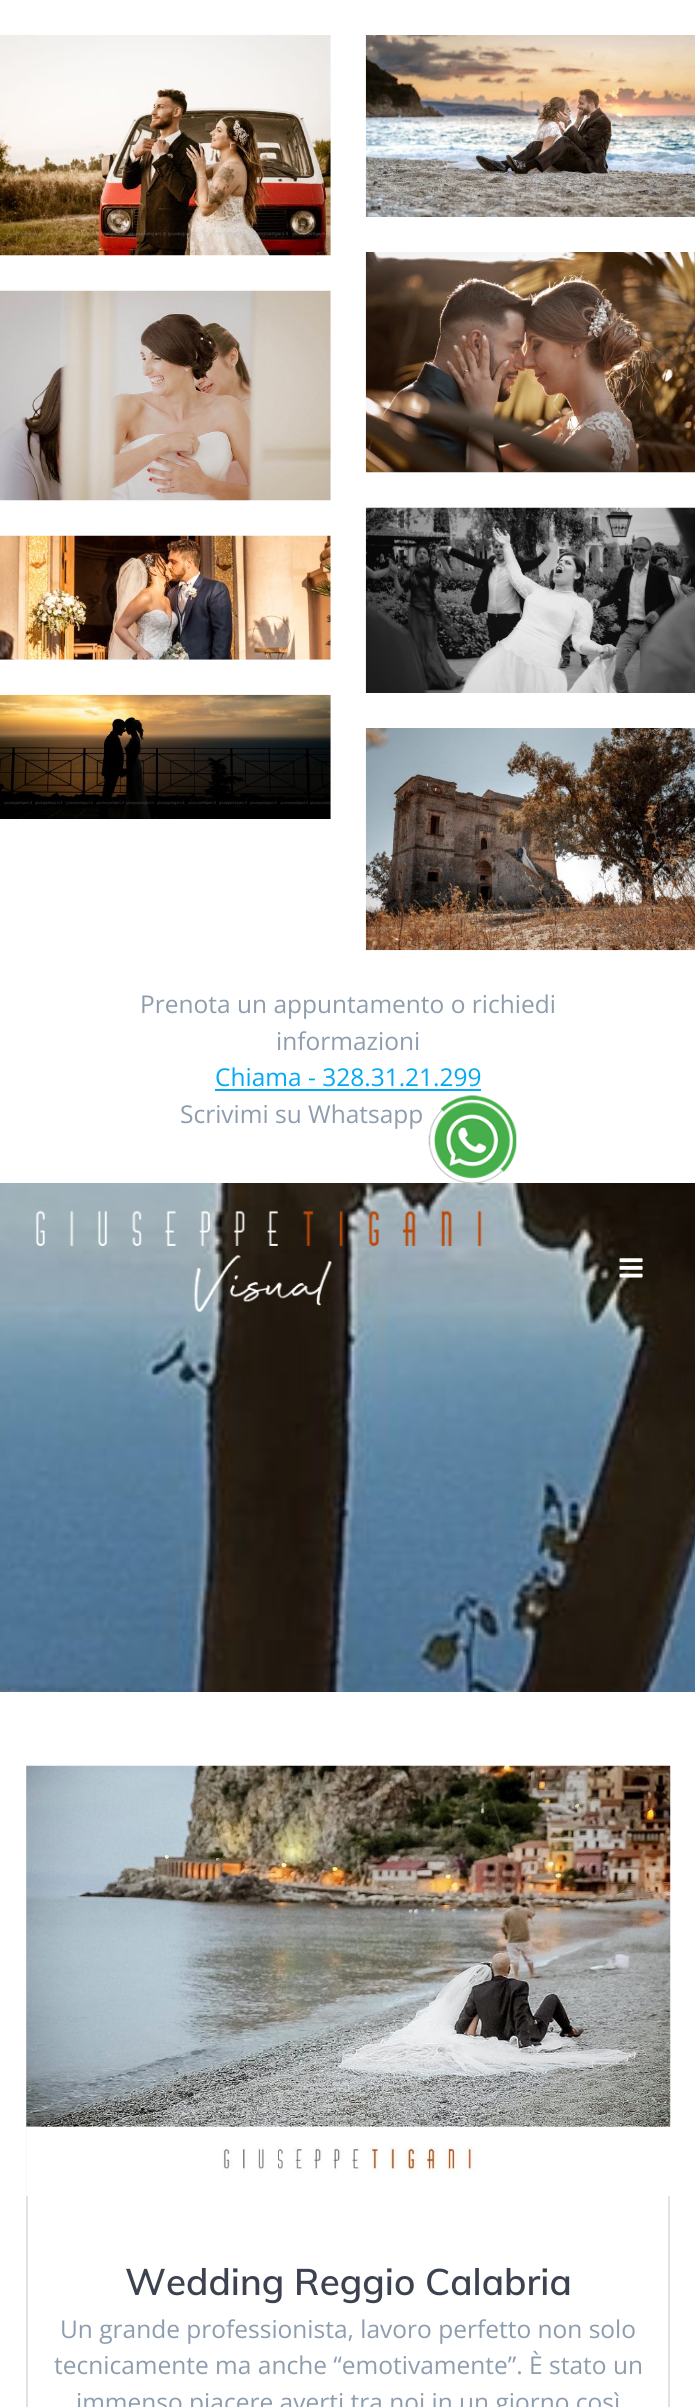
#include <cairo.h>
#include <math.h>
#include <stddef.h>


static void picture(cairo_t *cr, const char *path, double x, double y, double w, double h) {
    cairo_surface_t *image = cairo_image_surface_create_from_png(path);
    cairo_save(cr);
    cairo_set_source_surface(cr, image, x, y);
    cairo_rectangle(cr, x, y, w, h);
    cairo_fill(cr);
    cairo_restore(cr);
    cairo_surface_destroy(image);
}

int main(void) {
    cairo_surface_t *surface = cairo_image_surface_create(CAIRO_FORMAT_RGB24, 695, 2407);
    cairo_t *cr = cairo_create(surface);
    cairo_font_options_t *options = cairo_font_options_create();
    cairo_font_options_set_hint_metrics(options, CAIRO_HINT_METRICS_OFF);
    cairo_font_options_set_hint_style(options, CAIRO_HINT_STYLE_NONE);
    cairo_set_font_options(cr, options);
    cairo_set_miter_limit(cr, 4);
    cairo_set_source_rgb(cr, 1, 1, 1);
    cairo_paint(cr);
    picture(cr, "img1.png", 0, 35, 331, 221);
    picture(cr, "img2.png", 365, 35, 330, 182);
    picture(cr, "img3.png", 0, 290, 331, 211);
    picture(cr, "img4.png", 365, 252, 330, 221);
    picture(cr, "img5.png", 0, 535, 331, 125);
    picture(cr, "img6.png", 365, 507, 330, 186);
    picture(cr, "img7.png", 0, 694, 331, 125);
    picture(cr, "img8.png", 365, 728, 330, 223);
    cairo_select_font_face(cr, "Open Sans", CAIRO_FONT_SLANT_NORMAL, CAIRO_FONT_WEIGHT_NORMAL);
    cairo_set_font_size(cr, 24.5);
    cairo_set_source_rgb(cr, 0.557, 0.616, 0.682);
    cairo_move_to(cr, 140, 1013);
    cairo_show_text(cr, "Prenota un appuntamento o richiedi");
    cairo_move_to(cr, 276, 1050);
    cairo_show_text(cr, "informazioni");
    cairo_set_source_rgb(cr, 0.012, 0.663, 0.957);
    cairo_move_to(cr, 215, 1086);
    cairo_show_text(cr, "Chiama - 328.31.21.299");
    cairo_rectangle(cr, 215, 1089, 266, 2);
    cairo_fill(cr);
    cairo_set_source_rgb(cr, 0.557, 0.616, 0.682);
    cairo_move_to(cr, 180, 1123);
    cairo_show_text(cr, "Scrivimi su Whatsapp");
    picture(cr, "img9.png", 428, 1095, 89, 88);
    picture(cr, "img12.png", 0, 1183, 695, 509);
    picture(cr, "img10.png", 35, 1210, 447, 102);
    cairo_set_source_rgba(cr, 0, 0, 0, 0.1);
    cairo_arc(cr, 631, 1268, 31, 0, 2 * M_PI);
    cairo_fill(cr);
    picture(cr, "img11.png", 619, 1258, 24, 20);
    cairo_rectangle(cr, 27, 1767, 642, 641);
    cairo_set_source_rgb(cr, 0.878, 0.882, 0.882);
    cairo_stroke(cr);
    picture(cr, "img13.png", 26, 1765, 645, 432);
    cairo_select_font_face(cr, "Muli SemiBold", CAIRO_FONT_SLANT_NORMAL, CAIRO_FONT_WEIGHT_NORMAL);
    cairo_set_font_size(cr, 36.75);
    cairo_set_source_rgb(cr, 0.235, 0.259, 0.31);
    cairo_move_to(cr, 125, 2295);
    cairo_show_text(cr, "Wedding Reggio Calabria");
    cairo_select_font_face(cr, "Open Sans", CAIRO_FONT_SLANT_NORMAL, CAIRO_FONT_WEIGHT_NORMAL);
    cairo_set_font_size(cr, 24.5);
    cairo_set_source_rgb(cr, 0.557, 0.616, 0.682);
    cairo_move_to(cr, 60, 2338);
    cairo_show_text(cr, "Un grande professionista, lavoro perfetto non solo");
    cairo_move_to(cr, 54, 2374);
    cairo_show_text(cr, "tecnicamente ma anche “emotivamente”. È stato un");
    cairo_move_to(cr, 76, 2411);
    cairo_show_text(cr, "immenso piacere averti tra noi in un giorno così");
    cairo_surface_write_to_png(surface, "page.png");
    cairo_font_options_destroy(options);
    cairo_destroy(cr);
    cairo_surface_destroy(surface);
    return 0;
}
